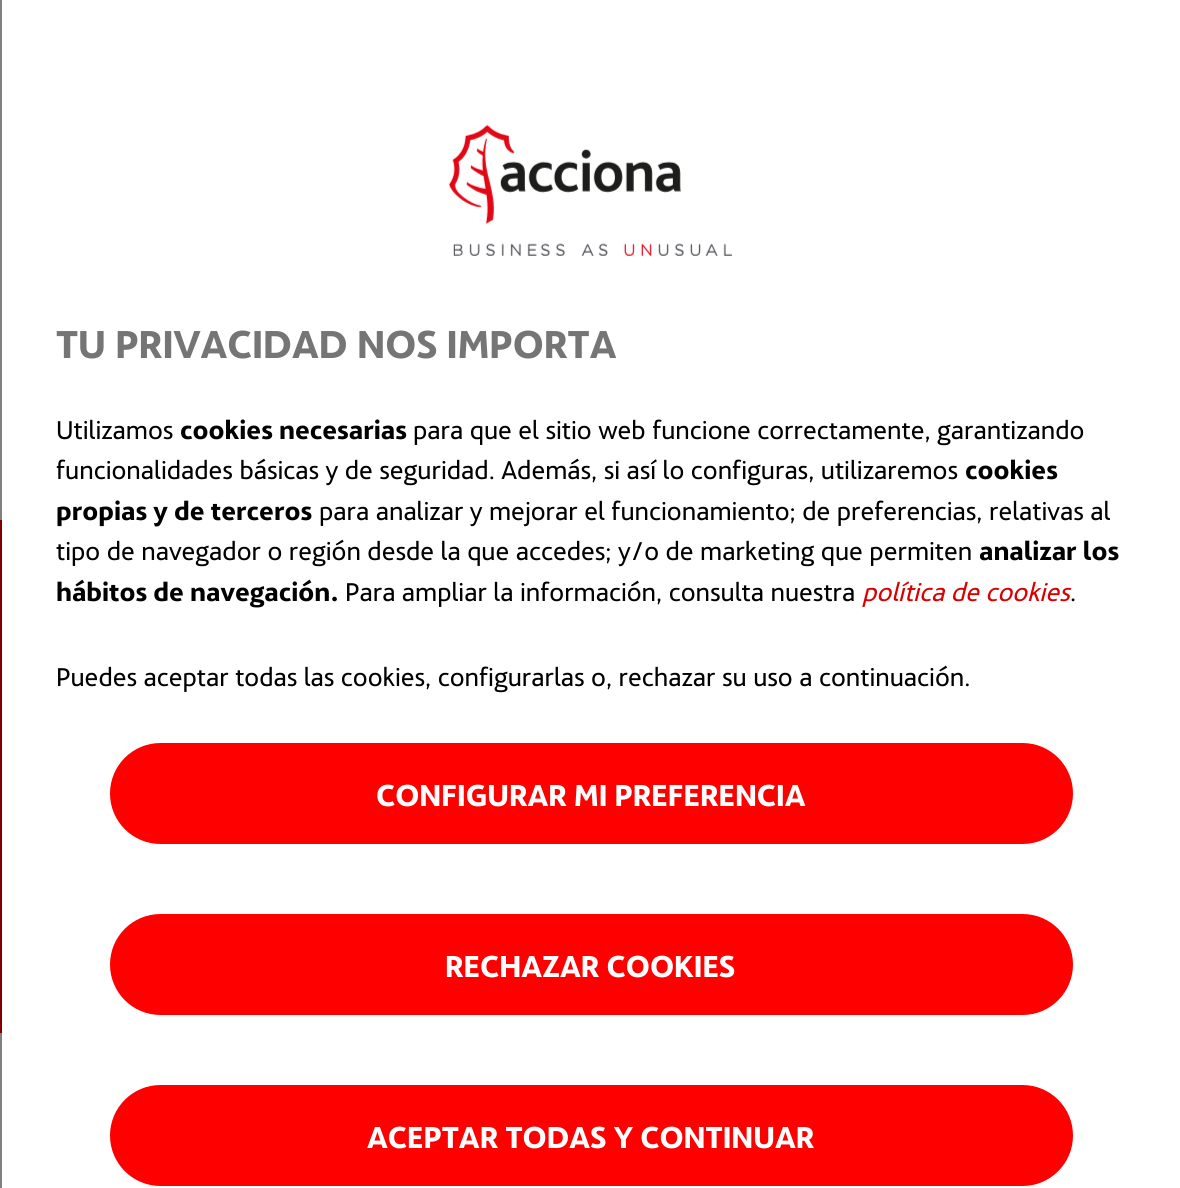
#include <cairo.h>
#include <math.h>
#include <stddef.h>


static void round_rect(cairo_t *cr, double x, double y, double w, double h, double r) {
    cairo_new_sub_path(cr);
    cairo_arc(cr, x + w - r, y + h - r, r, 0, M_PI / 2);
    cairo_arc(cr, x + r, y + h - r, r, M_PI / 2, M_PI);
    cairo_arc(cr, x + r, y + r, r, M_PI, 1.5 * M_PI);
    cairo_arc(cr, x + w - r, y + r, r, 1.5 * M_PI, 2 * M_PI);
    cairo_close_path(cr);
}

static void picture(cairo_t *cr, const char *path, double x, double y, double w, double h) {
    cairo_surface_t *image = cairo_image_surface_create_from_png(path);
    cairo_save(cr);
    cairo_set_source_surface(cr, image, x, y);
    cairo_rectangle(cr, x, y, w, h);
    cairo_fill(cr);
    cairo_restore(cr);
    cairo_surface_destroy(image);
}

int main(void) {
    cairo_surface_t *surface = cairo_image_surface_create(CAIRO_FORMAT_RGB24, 1180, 1188);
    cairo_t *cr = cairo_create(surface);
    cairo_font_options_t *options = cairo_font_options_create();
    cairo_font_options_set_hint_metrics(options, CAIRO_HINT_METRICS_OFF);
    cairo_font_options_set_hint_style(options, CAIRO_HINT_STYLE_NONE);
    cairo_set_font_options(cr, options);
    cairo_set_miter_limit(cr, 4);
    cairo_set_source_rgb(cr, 0.502, 0.502, 0.502);
    cairo_paint(cr);
    cairo_set_source_rgb(cr, 0.502, 0, 0);
    cairo_rectangle(cr, 0, 520, 2, 513);
    cairo_fill(cr);
    cairo_set_source_rgb(cr, 1, 1, 1);
    cairo_rectangle(cr, 2, 0, 1178, 1188);
    cairo_fill(cr);
    picture(cr, "img1.png", 448, 124, 284, 132);
    cairo_select_font_face(cr, "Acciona", CAIRO_FONT_SLANT_NORMAL, CAIRO_FONT_WEIGHT_BOLD);
    cairo_set_font_size(cr, 40.5);
    cairo_set_source_rgb(cr, 0.459, 0.459, 0.459);
    cairo_move_to(cr, 56, 358);
    cairo_show_text(cr, "TU PRIVACIDAD NOS IMPORTA");
    cairo_select_font_face(cr, "Acciona", CAIRO_FONT_SLANT_NORMAL, CAIRO_FONT_WEIGHT_NORMAL);
    cairo_set_font_size(cr, 27);
    cairo_set_source_rgb(cr, 0, 0, 0);
    cairo_move_to(cr, 56, 439);
    cairo_show_text(cr, "Utilizamos");
    cairo_select_font_face(cr, "Acciona", CAIRO_FONT_SLANT_NORMAL, CAIRO_FONT_WEIGHT_BOLD);
    cairo_move_to(cr, 180, 439);
    cairo_show_text(cr, "cookies necesarias");
    cairo_select_font_face(cr, "Acciona", CAIRO_FONT_SLANT_NORMAL, CAIRO_FONT_WEIGHT_NORMAL);
    cairo_move_to(cr, 413, 439);
    cairo_show_text(cr, "para que el sitio web funcione correctamente, garantizando");
    cairo_move_to(cr, 56, 479);
    cairo_show_text(cr, "funcionalidades básicas y de seguridad. Además, si así lo configuras, utilizaremos");
    cairo_select_font_face(cr, "Acciona", CAIRO_FONT_SLANT_NORMAL, CAIRO_FONT_WEIGHT_BOLD);
    cairo_move_to(cr, 965, 479);
    cairo_show_text(cr, "cookies");
    cairo_move_to(cr, 56, 520);
    cairo_show_text(cr, "propias y de terceros");
    cairo_select_font_face(cr, "Acciona", CAIRO_FONT_SLANT_NORMAL, CAIRO_FONT_WEIGHT_NORMAL);
    cairo_move_to(cr, 319, 520);
    cairo_show_text(cr, "para analizar y mejorar el funcionamiento; de preferencias, relativas al");
    cairo_move_to(cr, 56, 560);
    cairo_show_text(cr, "tipo de navegador o región desde la que accedes; y/o de marketing que permiten");
    cairo_select_font_face(cr, "Acciona", CAIRO_FONT_SLANT_NORMAL, CAIRO_FONT_WEIGHT_BOLD);
    cairo_move_to(cr, 979, 560);
    cairo_show_text(cr, "analizar los");
    cairo_move_to(cr, 56, 601);
    cairo_show_text(cr, "hábitos de navegación.");
    cairo_select_font_face(cr, "Acciona", CAIRO_FONT_SLANT_NORMAL, CAIRO_FONT_WEIGHT_NORMAL);
    cairo_move_to(cr, 345, 601);
    cairo_show_text(cr, "Para ampliar la información, consulta nuestra");
    cairo_move_to(cr, 1070, 601);
    cairo_show_text(cr, ".");
    cairo_select_font_face(cr, "Acciona", CAIRO_FONT_SLANT_ITALIC, CAIRO_FONT_WEIGHT_NORMAL);
    cairo_set_source_rgb(cr, 0.847, 0, 0);
    cairo_move_to(cr, 862, 601);
    cairo_show_text(cr, "política de cookies");
    cairo_select_font_face(cr, "Acciona", CAIRO_FONT_SLANT_NORMAL, CAIRO_FONT_WEIGHT_NORMAL);
    cairo_set_source_rgb(cr, 0, 0, 0);
    cairo_move_to(cr, 56, 686);
    cairo_show_text(cr, "Puedes aceptar todas las cookies, configurarlas o, rechazar su uso a continuación.");
    cairo_set_source_rgb(cr, 1, 0, 0);
    round_rect(cr, 110, 743, 963, 101, 50.5);
    cairo_fill(cr);
    cairo_select_font_face(cr, "Acciona", CAIRO_FONT_SLANT_NORMAL, CAIRO_FONT_WEIGHT_BOLD);
    cairo_set_font_size(cr, 31.5);
    cairo_set_source_rgb(cr, 1, 1, 1);
    cairo_move_to(cr, 376, 806);
    cairo_show_text(cr, "CONFIGURAR MI PREFERENCIA");
    cairo_set_source_rgb(cr, 1, 0, 0);
    round_rect(cr, 110, 914, 963, 101, 50.5);
    cairo_fill(cr);
    cairo_set_source_rgb(cr, 1, 1, 1);
    cairo_move_to(cr, 445, 977);
    cairo_show_text(cr, "RECHAZAR COOKIES");
    cairo_set_source_rgb(cr, 1, 0, 0);
    round_rect(cr, 110, 1085, 963, 101, 50.5);
    cairo_fill(cr);
    cairo_set_source_rgb(cr, 1, 1, 1);
    cairo_move_to(cr, 367, 1148);
    cairo_show_text(cr, "ACEPTAR TODAS Y CONTINUAR");
    cairo_surface_write_to_png(surface, "page.png");
    cairo_font_options_destroy(options);
    cairo_destroy(cr);
    cairo_surface_destroy(surface);
    return 0;
}
